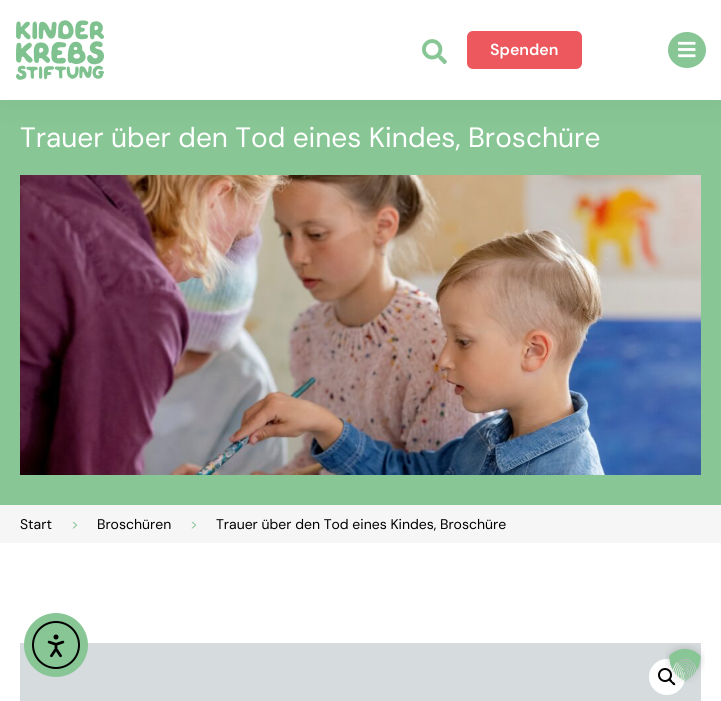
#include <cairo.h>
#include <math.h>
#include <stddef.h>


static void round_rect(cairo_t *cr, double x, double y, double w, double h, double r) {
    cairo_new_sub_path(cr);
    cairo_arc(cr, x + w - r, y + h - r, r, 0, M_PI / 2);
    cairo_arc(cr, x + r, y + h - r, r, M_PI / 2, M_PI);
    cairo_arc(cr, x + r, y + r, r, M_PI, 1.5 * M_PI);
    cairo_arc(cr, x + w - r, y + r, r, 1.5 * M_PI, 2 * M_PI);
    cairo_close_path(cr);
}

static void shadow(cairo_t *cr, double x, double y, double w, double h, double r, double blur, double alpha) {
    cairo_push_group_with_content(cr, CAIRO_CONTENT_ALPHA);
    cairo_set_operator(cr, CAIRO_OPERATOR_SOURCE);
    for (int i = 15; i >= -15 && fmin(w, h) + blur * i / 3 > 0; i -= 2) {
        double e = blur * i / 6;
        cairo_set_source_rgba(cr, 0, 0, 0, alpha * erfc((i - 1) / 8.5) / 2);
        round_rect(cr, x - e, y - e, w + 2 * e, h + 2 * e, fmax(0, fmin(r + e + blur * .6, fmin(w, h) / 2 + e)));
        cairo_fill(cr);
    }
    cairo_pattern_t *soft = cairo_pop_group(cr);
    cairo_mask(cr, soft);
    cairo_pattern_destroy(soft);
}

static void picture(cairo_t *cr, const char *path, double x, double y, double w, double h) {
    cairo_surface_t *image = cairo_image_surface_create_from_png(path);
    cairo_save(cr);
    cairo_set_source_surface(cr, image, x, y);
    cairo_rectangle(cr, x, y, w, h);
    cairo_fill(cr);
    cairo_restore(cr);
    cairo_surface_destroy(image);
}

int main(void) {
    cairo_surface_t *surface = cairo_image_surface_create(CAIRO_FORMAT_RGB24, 721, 701);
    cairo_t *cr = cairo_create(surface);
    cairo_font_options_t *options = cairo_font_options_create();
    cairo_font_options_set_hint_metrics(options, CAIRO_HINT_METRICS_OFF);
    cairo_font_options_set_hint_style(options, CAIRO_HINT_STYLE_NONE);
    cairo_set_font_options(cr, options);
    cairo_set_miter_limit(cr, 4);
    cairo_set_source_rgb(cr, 1, 1, 1);
    cairo_paint(cr);
    cairo_set_source_rgb(cr, 0.533, 0.776, 0.584);
    cairo_rectangle(cr, 0, 100, 721, 405);
    cairo_fill(cr);
    cairo_set_source_rgb(cr, 0, 0, 0);
    shadow(cr, 0, 3, 721, 100, 0, 15, 0.05);
    cairo_set_source_rgb(cr, 1, 1, 1);
    cairo_rectangle(cr, 0, 0, 721, 100);
    cairo_fill(cr);
    picture(cr, "img1.png", 16, 20, 89, 60);
    picture(cr, "img2.png", 422, 39, 25, 26);
    cairo_set_source_rgb(cr, 0.922, 0.345, 0.365);
    round_rect(cr, 467, 31, 115, 38, 6);
    cairo_fill(cr);
    cairo_select_font_face(cr, "DM Sans SemiBold", CAIRO_FONT_SLANT_NORMAL, CAIRO_FONT_WEIGHT_NORMAL);
    cairo_set_font_size(cr, 16);
    cairo_set_source_rgb(cr, 1, 1, 1);
    cairo_move_to(cr, 490, 55);
    cairo_show_text(cr, "Spenden");
    cairo_set_source_rgb(cr, 0.533, 0.776, 0.584);
    cairo_new_path(cr);
    cairo_move_to(cr, 687, 32);
    cairo_curve_to(cr, 697.5, 32, 706, 40, 706, 50);
    cairo_curve_to(cr, 706, 60, 697.5, 68, 687, 68);
    cairo_curve_to(cr, 676.5, 68, 668, 60, 668, 50);
    cairo_curve_to(cr, 668, 40, 676.5, 32, 687, 32);
    cairo_close_path(cr);
    cairo_fill(cr);
    picture(cr, "img3.png", 678, 41, 18, 17);
    cairo_select_font_face(cr, "DM Sans", CAIRO_FONT_SLANT_NORMAL, CAIRO_FONT_WEIGHT_NORMAL);
    cairo_set_font_size(cr, 28);
    cairo_set_source_rgb(cr, 1, 1, 1);
    cairo_move_to(cr, 20, 147);
    cairo_show_text(cr, "Trauer über den Tod eines Kindes, Broschüre");
    picture(cr, "img4.png", 20, 175, 681, 300);
    cairo_set_source_rgb(cr, 0.961, 0.961, 0.961);
    cairo_rectangle(cr, 0, 505, 721, 38);
    cairo_fill(cr);
    cairo_set_font_size(cr, 14);
    cairo_set_source_rgb(cr, 0, 0, 0);
    cairo_move_to(cr, 20, 529);
    cairo_show_text(cr, "Start");
    cairo_set_source_rgb(cr, 0.533, 0.776, 0.584);
    cairo_move_to(cr, 71, 529);
    cairo_show_text(cr, ">");
    cairo_set_source_rgb(cr, 0, 0, 0);
    cairo_move_to(cr, 97, 529);
    cairo_show_text(cr, "Broschüren");
    cairo_set_source_rgb(cr, 0.533, 0.776, 0.584);
    cairo_move_to(cr, 190, 529);
    cairo_show_text(cr, ">");
    cairo_set_source_rgb(cr, 0, 0, 0);
    cairo_move_to(cr, 216, 529);
    cairo_show_text(cr, "Trauer über den Tod eines Kindes, Broschüre");
    cairo_set_source_rgb(cr, 0.839, 0.859, 0.871);
    cairo_rectangle(cr, 20, 643, 681, 58);
    cairo_fill(cr);
    cairo_set_source_rgb(cr, 1, 1, 1);
    cairo_arc(cr, 667, 677, 18, 0, 2 * M_PI);
    cairo_fill(cr);
    cairo_arc(cr, 665, 675, 6, 0, 2 * M_PI);
    cairo_set_source_rgb(cr, 0, 0, 0);
    cairo_stroke(cr);
    cairo_new_path(cr);
    cairo_move_to(cr, 669, 679);
    cairo_curve_to(cr, 670.5, 678, 672, 680.5, 672.5, 681.5);
    cairo_curve_to(cr, 673.5, 682, 676, 683.5, 675, 685);
    cairo_curve_to(cr, 673.5, 686, 672, 683.5, 671.5, 683);
    cairo_curve_to(cr, 670.5, 682, 668, 680.5, 669, 679);
    cairo_close_path(cr);
    cairo_fill(cr);
    cairo_set_source_rgb(cr, 0.533, 0.776, 0.584);
    cairo_arc(cr, 56, 645, 32, 0, 2 * M_PI);
    cairo_fill(cr);
    cairo_arc(cr, 56, 645, 23, 0, 2 * M_PI);
    cairo_set_source_rgb(cr, 0, 0, 0);
    cairo_stroke(cr);
    picture(cr, "img5.png", 47, 634, 18, 24);
    picture(cr, "img6.png", 665, 644, 40, 39);
    cairo_surface_write_to_png(surface, "page.png");
    cairo_font_options_destroy(options);
    cairo_destroy(cr);
    cairo_surface_destroy(surface);
    return 0;
}
